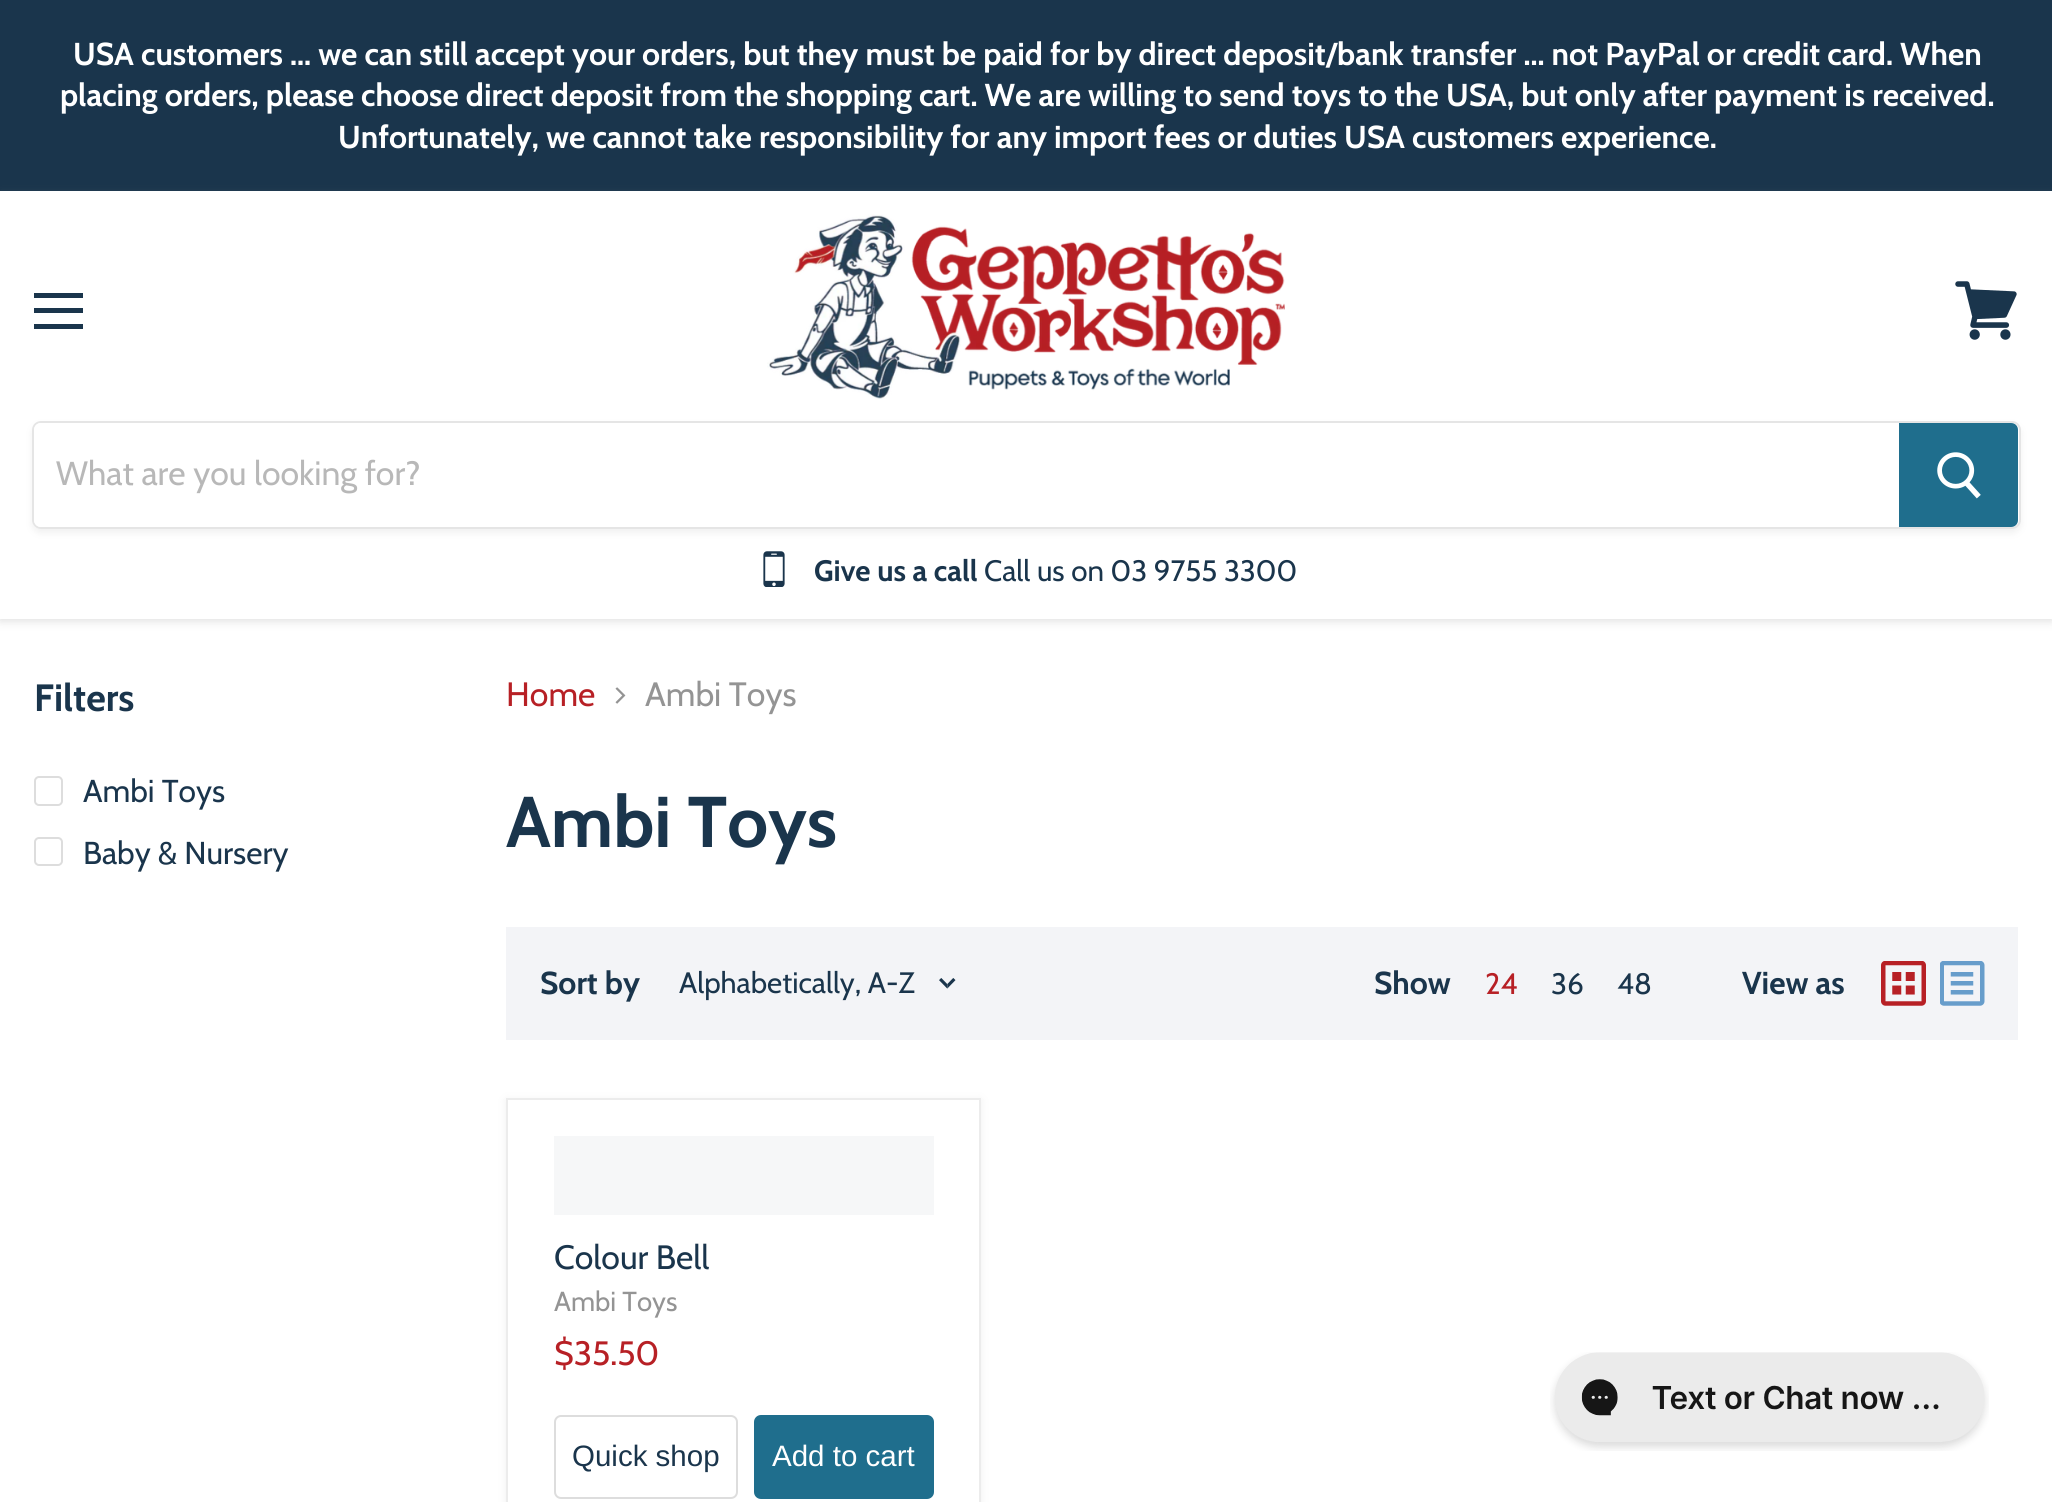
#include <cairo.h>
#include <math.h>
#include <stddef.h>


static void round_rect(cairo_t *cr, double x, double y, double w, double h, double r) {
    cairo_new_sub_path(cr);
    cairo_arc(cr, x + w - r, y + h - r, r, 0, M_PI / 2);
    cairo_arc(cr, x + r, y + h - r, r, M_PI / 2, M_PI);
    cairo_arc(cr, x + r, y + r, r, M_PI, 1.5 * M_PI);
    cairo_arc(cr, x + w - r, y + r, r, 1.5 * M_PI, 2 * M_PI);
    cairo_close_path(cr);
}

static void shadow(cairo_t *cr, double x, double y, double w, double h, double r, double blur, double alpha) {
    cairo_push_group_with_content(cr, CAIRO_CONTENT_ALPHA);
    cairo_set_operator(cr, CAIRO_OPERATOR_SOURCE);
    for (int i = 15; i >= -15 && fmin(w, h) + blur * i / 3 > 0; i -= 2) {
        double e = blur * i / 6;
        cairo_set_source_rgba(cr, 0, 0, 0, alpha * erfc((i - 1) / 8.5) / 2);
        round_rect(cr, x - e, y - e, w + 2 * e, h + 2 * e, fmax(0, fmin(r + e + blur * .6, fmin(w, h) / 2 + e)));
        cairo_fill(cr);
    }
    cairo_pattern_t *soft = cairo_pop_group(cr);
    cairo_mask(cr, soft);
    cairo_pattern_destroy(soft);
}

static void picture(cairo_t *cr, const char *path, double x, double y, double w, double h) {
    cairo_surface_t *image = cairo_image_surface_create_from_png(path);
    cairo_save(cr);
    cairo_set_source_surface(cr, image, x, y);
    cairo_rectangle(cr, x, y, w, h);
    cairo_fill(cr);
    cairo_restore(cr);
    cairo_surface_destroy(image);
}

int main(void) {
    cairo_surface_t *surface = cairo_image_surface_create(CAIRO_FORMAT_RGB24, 2052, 1502);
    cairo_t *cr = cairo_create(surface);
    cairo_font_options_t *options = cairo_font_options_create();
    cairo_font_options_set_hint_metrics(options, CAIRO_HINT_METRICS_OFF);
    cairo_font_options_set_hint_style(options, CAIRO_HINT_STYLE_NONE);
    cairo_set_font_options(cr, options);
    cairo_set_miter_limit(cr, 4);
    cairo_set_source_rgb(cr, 1, 1, 1);
    cairo_paint(cr);
    cairo_set_source_rgb(cr, 0.102, 0.208, 0.298);
    cairo_rectangle(cr, 0, 0, 2052, 191);
    cairo_fill(cr);
    cairo_select_font_face(cr, "Cabin", CAIRO_FONT_SLANT_NORMAL, CAIRO_FONT_WEIGHT_BOLD);
    cairo_set_font_size(cr, 31.65);
    cairo_set_source_rgb(cr, 1, 1, 1);
    cairo_move_to(cr, 73, 65);
    cairo_show_text(cr, "USA customers ... we can still accept your orders, but they must be paid for by direct deposit/bank transfer ... not PayPal or credit card. When");
    cairo_move_to(cr, 60, 106);
    cairo_show_text(cr, "placing orders, please choose direct deposit from the shopping cart. We are willing to send toys to the USA, but only after payment is received.");
    cairo_move_to(cr, 338, 148);
    cairo_show_text(cr, "Unfortunately, we cannot take responsibility for any import fees or duties USA customers experience.");
    cairo_set_source_rgb(cr, 0.498, 0.498, 0.498);
    shadow(cr, 0, 194, 2052, 427, 0, 4.5, 0.25);
    cairo_set_source_rgb(cr, 1, 1, 1);
    cairo_rectangle(cr, 0, 191, 2052, 428);
    cairo_fill(cr);
    cairo_set_source_rgb(cr, 0.102, 0.208, 0.298);
    cairo_rectangle(cr, 34, 293, 49, 5);
    cairo_fill(cr);
    cairo_rectangle(cr, 34, 308, 49, 5);
    cairo_fill(cr);
    cairo_rectangle(cr, 34, 324, 49, 5);
    cairo_fill(cr);
    picture(cr, "img1.png", 1955, 281, 62, 59);
    picture(cr, "img2.png", 767, 214, 518, 186);
    cairo_save(cr);
    cairo_set_fill_rule(cr, CAIRO_FILL_RULE_EVEN_ODD);
    cairo_new_path(cr);
    cairo_move_to(cr, 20, 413);
    cairo_line_to(cr, 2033, 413);
    cairo_line_to(cr, 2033, 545);
    cairo_line_to(cr, 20, 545);
    cairo_close_path(cr);
    cairo_move_to(cr, 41, 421);
    cairo_line_to(cr, 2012, 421);
    cairo_curve_to(cr, 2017, 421, 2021, 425, 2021, 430);
    cairo_line_to(cr, 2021, 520);
    cairo_curve_to(cr, 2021, 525, 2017, 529, 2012, 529);
    cairo_line_to(cr, 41, 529);
    cairo_curve_to(cr, 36, 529, 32, 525, 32, 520);
    cairo_line_to(cr, 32, 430);
    cairo_curve_to(cr, 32, 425, 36, 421, 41, 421);
    cairo_close_path(cr);
    cairo_clip(cr);
    cairo_set_source_rgb(cr, 0.498, 0.498, 0.498);
    shadow(cr, 32, 425, 1989, 108, 9, 3.5, 0.11);
    cairo_restore(cr);
    round_rect(cr, 33, 422, 1987, 106, 8);
    cairo_set_source_rgba(cr, 0.498, 0.498, 0.498, 0.2);
    cairo_stroke(cr);
    cairo_set_source_rgb(cr, 1, 1, 1);
    cairo_new_path(cr);
    cairo_move_to(cr, 41, 423);
    cairo_line_to(cr, 1899, 423);
    cairo_line_to(cr, 1899, 527);
    cairo_line_to(cr, 41, 527);
    cairo_curve_to(cr, 37, 527, 34, 524, 34, 520);
    cairo_line_to(cr, 34, 430);
    cairo_curve_to(cr, 34, 426, 37, 423, 41, 423);
    cairo_close_path(cr);
    cairo_fill(cr);
    cairo_select_font_face(cr, "Cabin", CAIRO_FONT_SLANT_NORMAL, CAIRO_FONT_WEIGHT_NORMAL);
    cairo_set_font_size(cr, 33.75);
    cairo_set_source_rgb(cr, 0.722, 0.722, 0.722);
    cairo_move_to(cr, 56, 485);
    cairo_show_text(cr, "What are you looking for?");
    cairo_set_source_rgb(cr, 0.122, 0.431, 0.553);
    cairo_new_path(cr);
    cairo_move_to(cr, 1900, 424);
    cairo_line_to(cr, 2011, 424);
    cairo_curve_to(cr, 2014.5, 424, 2017, 426.5, 2017, 430);
    cairo_line_to(cr, 2017, 520);
    cairo_curve_to(cr, 2017, 523.5, 2014.5, 526, 2011, 526);
    cairo_line_to(cr, 1900, 526);
    cairo_close_path(cr);
    cairo_fill_preserve(cr);
    cairo_stroke(cr);
    picture(cr, "img3.png", 1937, 452, 44, 47);
    picture(cr, "img4.png", 763, 551, 22, 36);
    cairo_select_font_face(cr, "Cabin", CAIRO_FONT_SLANT_NORMAL, CAIRO_FONT_WEIGHT_BOLD);
    cairo_set_font_size(cr, 29.5);
    cairo_set_source_rgb(cr, 0.102, 0.208, 0.298);
    cairo_move_to(cr, 814, 581);
    cairo_show_text(cr, "Give us a call");
    cairo_select_font_face(cr, "Cabin", CAIRO_FONT_SLANT_NORMAL, CAIRO_FONT_WEIGHT_NORMAL);
    cairo_move_to(cr, 984, 581);
    cairo_show_text(cr, "Call us on 03 9755 3300");
    cairo_select_font_face(cr, "Cabin", CAIRO_FONT_SLANT_NORMAL, CAIRO_FONT_WEIGHT_BOLD);
    cairo_set_font_size(cr, 38);
    cairo_move_to(cr, 34, 711);
    cairo_show_text(cr, "Filters");
    round_rect(cr, 35, 777, 27, 28, 4);
    cairo_set_source_rgb(cr, 0.867, 0.867, 0.867);
    cairo_stroke(cr);
    cairo_select_font_face(cr, "Cabin", CAIRO_FONT_SLANT_NORMAL, CAIRO_FONT_WEIGHT_NORMAL);
    cairo_set_font_size(cr, 31.65);
    cairo_set_source_rgb(cr, 0.102, 0.208, 0.298);
    cairo_move_to(cr, 83, 802);
    cairo_show_text(cr, "Ambi Toys");
    round_rect(cr, 35, 838, 27, 27, 4);
    cairo_set_source_rgb(cr, 0.867, 0.867, 0.867);
    cairo_stroke(cr);
    cairo_set_source_rgb(cr, 0.102, 0.208, 0.298);
    cairo_move_to(cr, 83, 864);
    cairo_show_text(cr, "Baby & Nursery");
    cairo_set_font_size(cr, 33.75);
    cairo_set_source_rgb(cr, 0.718, 0.125, 0.145);
    cairo_move_to(cr, 506, 706);
    cairo_show_text(cr, "Home");
    picture(cr, "img5.png", 615, 687, 11, 17);
    cairo_set_source_rgb(cr, 0.58, 0.58, 0.58);
    cairo_move_to(cr, 645, 706);
    cairo_show_text(cr, "Ambi Toys");
    cairo_select_font_face(cr, "Cabin", CAIRO_FONT_SLANT_NORMAL, CAIRO_FONT_WEIGHT_BOLD);
    cairo_set_font_size(cr, 71.75);
    cairo_set_source_rgb(cr, 0.102, 0.208, 0.298);
    cairo_move_to(cr, 506, 847);
    cairo_show_text(cr, "Ambi Toys");
    cairo_set_source_rgb(cr, 0.953, 0.957, 0.965);
    cairo_rectangle(cr, 506, 927, 1512, 113);
    cairo_fill(cr);
    cairo_set_font_size(cr, 31.65);
    cairo_set_source_rgb(cr, 0.102, 0.208, 0.298);
    cairo_move_to(cr, 540, 994);
    cairo_show_text(cr, "Sort by");
    cairo_select_font_face(cr, "Cabin", CAIRO_FONT_SLANT_NORMAL, CAIRO_FONT_WEIGHT_NORMAL);
    cairo_set_font_size(cr, 29.5);
    cairo_move_to(cr, 679, 993);
    cairo_show_text(cr, "Alphabetically, A-Z");
    picture(cr, "img6.png", 939, 978, 17, 11);
    cairo_select_font_face(cr, "Cabin", CAIRO_FONT_SLANT_NORMAL, CAIRO_FONT_WEIGHT_BOLD);
    cairo_set_font_size(cr, 31.65);
    cairo_move_to(cr, 1374, 994);
    cairo_show_text(cr, "Show");
    cairo_select_font_face(cr, "Cabin", CAIRO_FONT_SLANT_NORMAL, CAIRO_FONT_WEIGHT_NORMAL);
    cairo_set_font_size(cr, 29.5);
    cairo_set_source_rgb(cr, 0.718, 0.125, 0.145);
    cairo_move_to(cr, 1485, 994);
    cairo_show_text(cr, "24");
    cairo_set_source_rgb(cr, 0.102, 0.208, 0.298);
    cairo_move_to(cr, 1551, 994);
    cairo_show_text(cr, "36");
    cairo_move_to(cr, 1617, 994);
    cairo_show_text(cr, "48");
    cairo_select_font_face(cr, "Cabin", CAIRO_FONT_SLANT_NORMAL, CAIRO_FONT_WEIGHT_BOLD);
    cairo_set_font_size(cr, 31.65);
    cairo_move_to(cr, 1742, 994);
    cairo_show_text(cr, "View as");
    picture(cr, "img7.png", 1881, 961, 45, 45);
    picture(cr, "img8.png", 1940, 961, 45, 45);
    cairo_set_source_rgb(cr, 0.498, 0.498, 0.498);
    shadow(cr, 506, 1100, 475, 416, 0, 4.5, 0.11);
    cairo_set_source_rgb(cr, 1, 1, 1);
    cairo_rectangle(cr, 507, 1099, 473, 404);
    cairo_fill_preserve(cr);
    cairo_set_source_rgb(cr, 0.922, 0.922, 0.922);
    cairo_stroke(cr);
    cairo_set_source_rgb(cr, 0.961, 0.965, 0.969);
    cairo_rectangle(cr, 554, 1136, 380, 79);
    cairo_fill(cr);
    cairo_select_font_face(cr, "Cabin", CAIRO_FONT_SLANT_NORMAL, CAIRO_FONT_WEIGHT_NORMAL);
    cairo_set_font_size(cr, 33.75);
    cairo_set_source_rgb(cr, 0.102, 0.208, 0.298);
    cairo_move_to(cr, 554, 1269);
    cairo_show_text(cr, "Colour Bell");
    cairo_set_font_size(cr, 27.5);
    cairo_set_source_rgb(cr, 0.58, 0.58, 0.58);
    cairo_move_to(cr, 554, 1311);
    cairo_show_text(cr, "Ambi Toys");
    cairo_set_font_size(cr, 33.75);
    cairo_set_source_rgb(cr, 0.718, 0.125, 0.145);
    cairo_move_to(cr, 554, 1365);
    cairo_show_text(cr, "$35.50");
    round_rect(cr, 555, 1416, 182, 82, 6);
    cairo_set_source_rgb(cr, 0.867, 0.867, 0.867);
    cairo_stroke(cr);
    cairo_select_font_face(cr, "Liberation Sans", CAIRO_FONT_SLANT_NORMAL, CAIRO_FONT_WEIGHT_NORMAL);
    cairo_set_font_size(cr, 29.5);
    cairo_set_source_rgb(cr, 0.102, 0.208, 0.298);
    cairo_move_to(cr, 572, 1466);
    cairo_show_text(cr, "Quick shop");
    cairo_set_source_rgb(cr, 0.122, 0.431, 0.553);
    round_rect(cr, 755, 1416, 178, 82, 6);
    cairo_fill_preserve(cr);
    cairo_stroke(cr);
    cairo_set_source_rgb(cr, 1, 1, 1);
    cairo_move_to(cr, 772, 1466);
    cairo_show_text(cr, "Add to cart");
    picture(cr, "img9.png", 1550, 1352, 439, 99);
    cairo_surface_write_to_png(surface, "page.png");
    cairo_font_options_destroy(options);
    cairo_destroy(cr);
    cairo_surface_destroy(surface);
    return 0;
}
